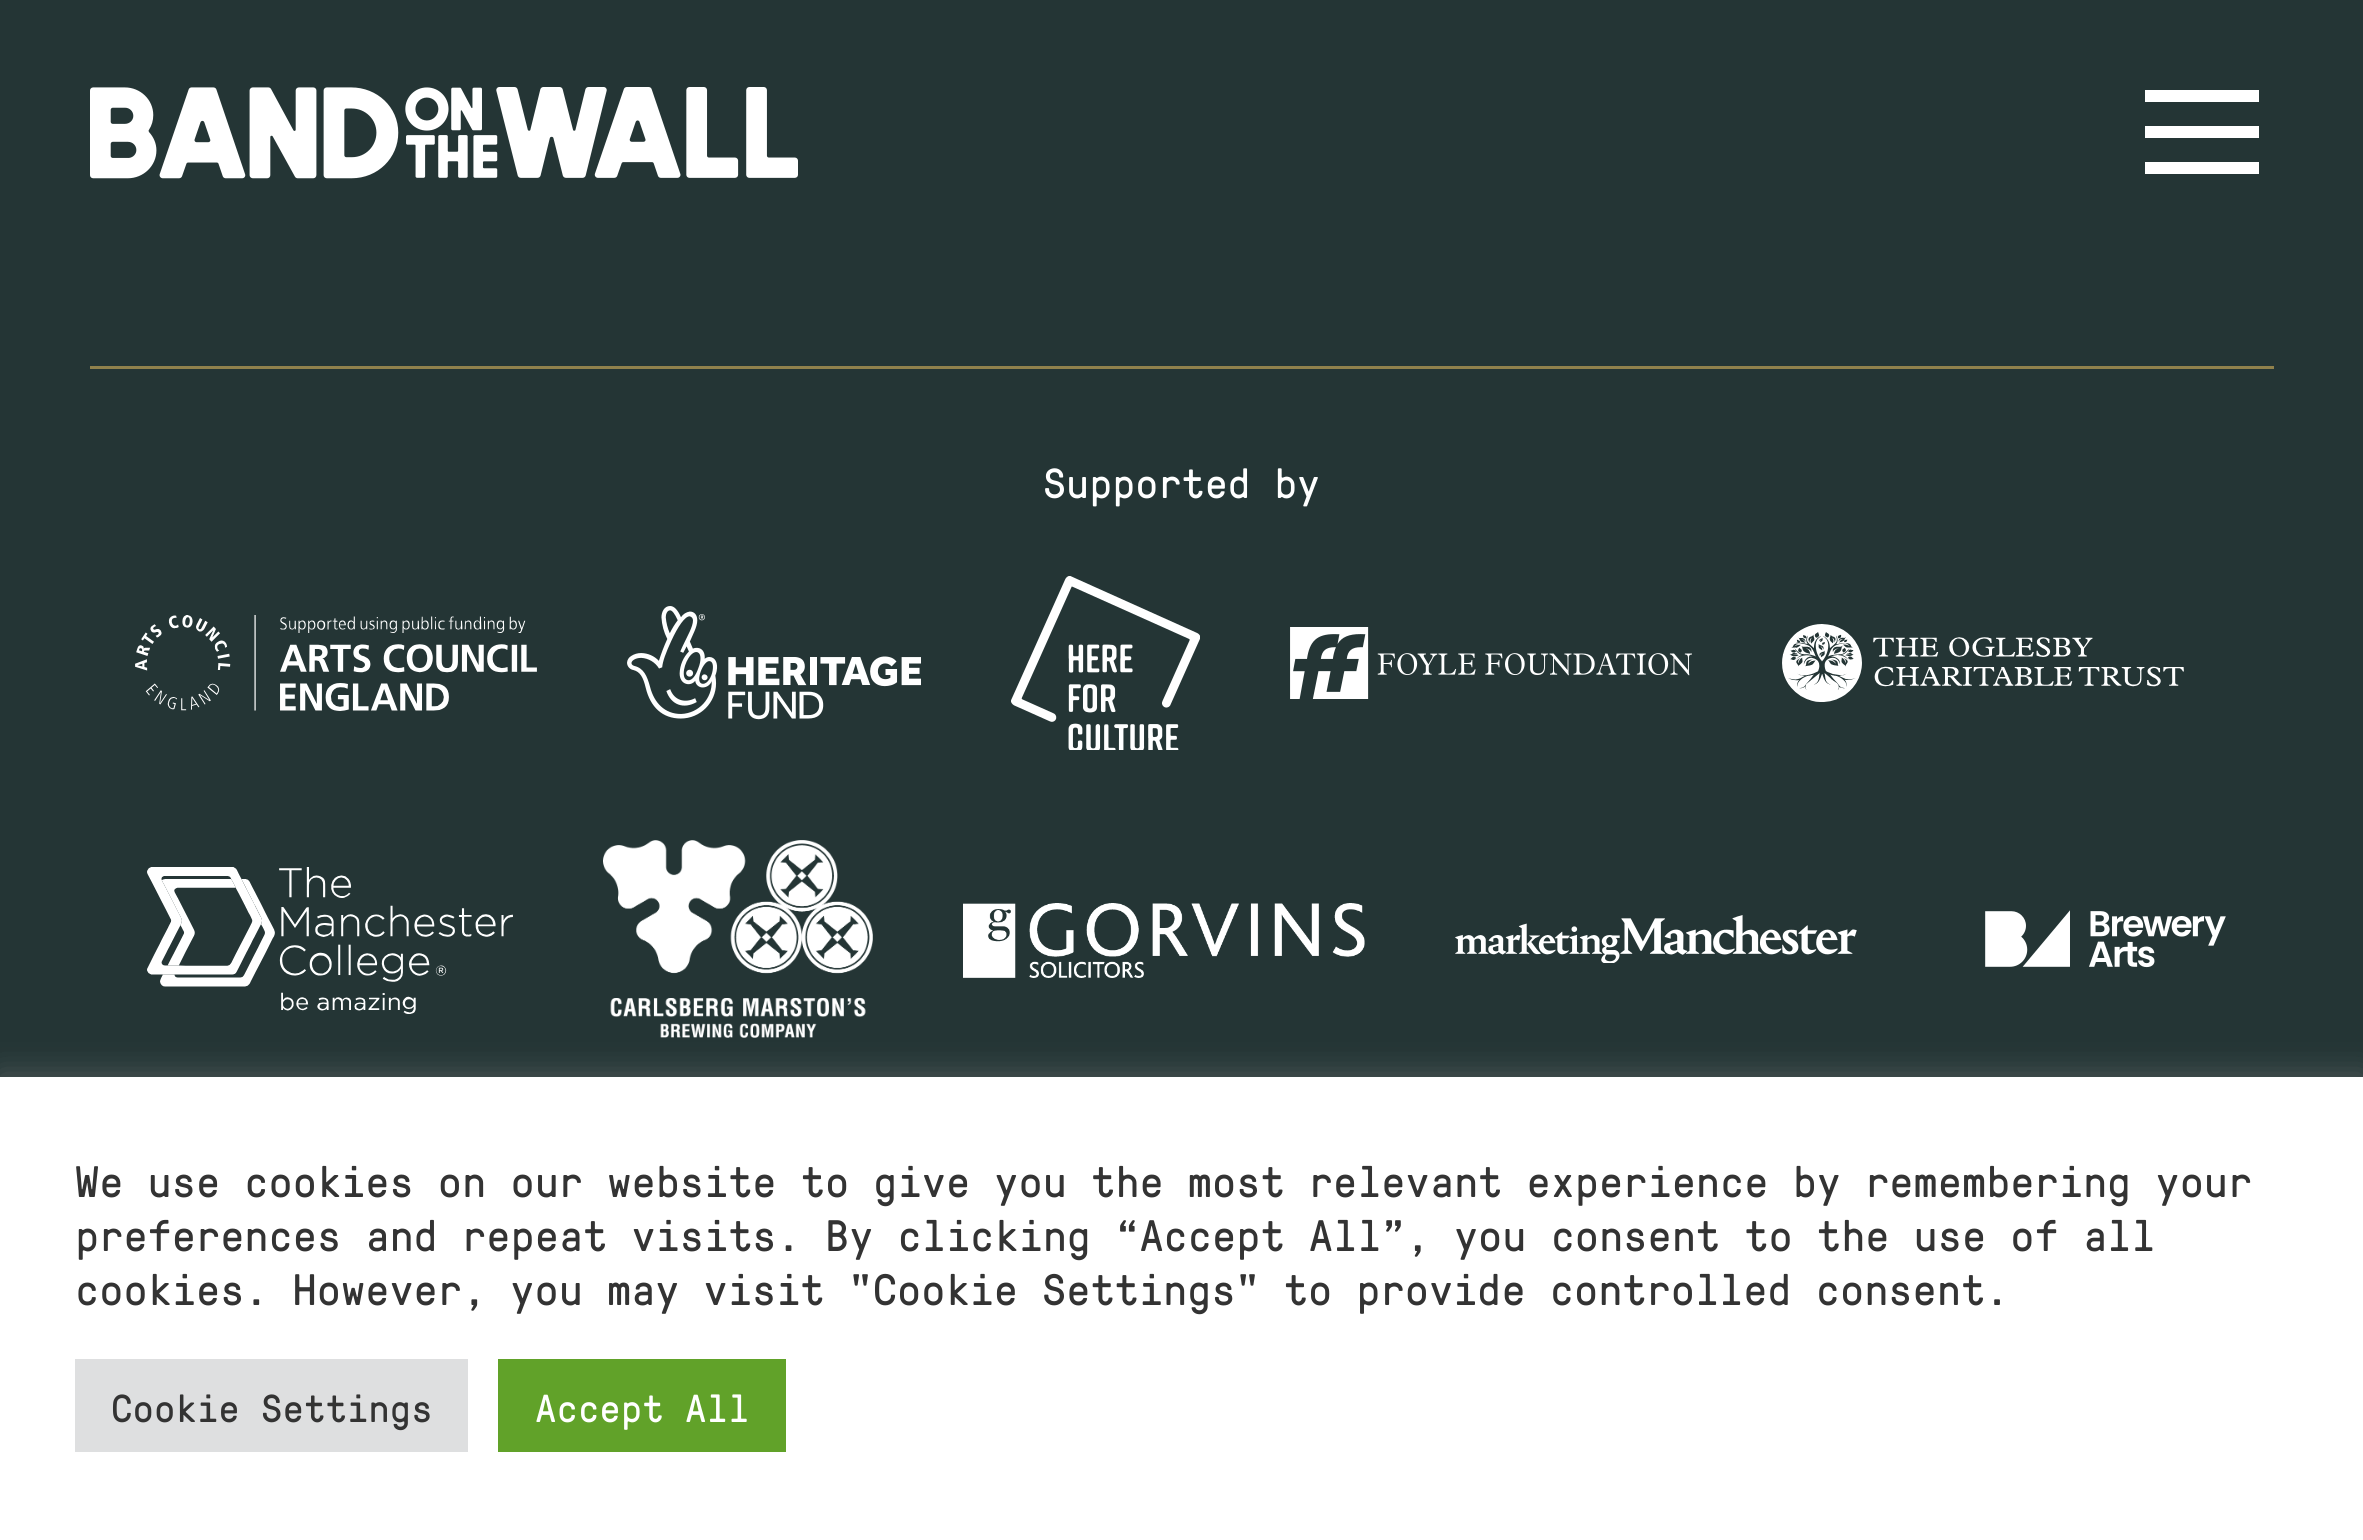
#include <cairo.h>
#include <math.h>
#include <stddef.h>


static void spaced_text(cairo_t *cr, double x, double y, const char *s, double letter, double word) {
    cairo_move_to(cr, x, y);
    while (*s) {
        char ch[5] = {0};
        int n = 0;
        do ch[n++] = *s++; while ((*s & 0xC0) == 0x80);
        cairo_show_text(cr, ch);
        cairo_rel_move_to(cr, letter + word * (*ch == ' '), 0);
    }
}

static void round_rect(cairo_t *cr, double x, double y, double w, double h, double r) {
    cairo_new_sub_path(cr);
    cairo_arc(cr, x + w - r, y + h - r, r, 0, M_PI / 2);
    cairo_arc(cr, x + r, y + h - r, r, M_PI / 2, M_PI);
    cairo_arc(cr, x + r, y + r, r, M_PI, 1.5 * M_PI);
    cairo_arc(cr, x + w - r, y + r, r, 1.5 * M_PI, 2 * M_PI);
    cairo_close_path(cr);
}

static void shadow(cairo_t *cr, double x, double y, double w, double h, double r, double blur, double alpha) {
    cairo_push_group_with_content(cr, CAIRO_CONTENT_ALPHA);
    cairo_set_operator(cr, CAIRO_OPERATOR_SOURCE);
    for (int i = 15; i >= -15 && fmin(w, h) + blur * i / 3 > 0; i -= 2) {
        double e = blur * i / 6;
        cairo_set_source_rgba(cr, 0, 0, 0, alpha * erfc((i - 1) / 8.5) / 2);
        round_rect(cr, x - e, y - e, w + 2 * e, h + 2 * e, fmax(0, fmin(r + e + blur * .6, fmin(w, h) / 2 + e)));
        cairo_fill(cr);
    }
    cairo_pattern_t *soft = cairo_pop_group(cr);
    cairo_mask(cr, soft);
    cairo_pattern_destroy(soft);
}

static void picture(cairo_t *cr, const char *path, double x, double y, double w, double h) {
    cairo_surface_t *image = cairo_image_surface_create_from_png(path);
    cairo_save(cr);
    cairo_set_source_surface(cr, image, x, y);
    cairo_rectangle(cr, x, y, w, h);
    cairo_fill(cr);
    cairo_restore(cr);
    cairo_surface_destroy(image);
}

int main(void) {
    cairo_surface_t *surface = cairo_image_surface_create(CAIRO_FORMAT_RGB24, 2363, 1540);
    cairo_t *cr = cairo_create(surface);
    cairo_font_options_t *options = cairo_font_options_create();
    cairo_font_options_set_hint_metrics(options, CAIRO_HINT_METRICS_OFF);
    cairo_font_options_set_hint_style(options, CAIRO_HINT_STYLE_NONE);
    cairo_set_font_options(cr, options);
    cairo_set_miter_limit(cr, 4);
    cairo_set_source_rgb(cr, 0.141, 0.208, 0.208);
    cairo_paint(cr);
    picture(cr, "img1.png", 90, 87, 708, 92);
    cairo_set_source_rgb(cr, 1, 1, 1);
    cairo_rectangle(cr, 2145, 90, 114, 12);
    cairo_fill(cr);
    cairo_rectangle(cr, 2145, 126, 114, 12);
    cairo_fill(cr);
    cairo_rectangle(cr, 2145, 162, 114, 12);
    cairo_fill(cr);
    cairo_set_source_rgb(cr, 0.565, 0.506, 0.298);
    cairo_rectangle(cr, 90, 366, 2184, 3);
    cairo_fill(cr);
    cairo_select_font_face(cr, "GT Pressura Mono", CAIRO_FONT_SLANT_NORMAL, CAIRO_FONT_WEIGHT_NORMAL);
    cairo_set_font_size(cr, 42);
    cairo_set_source_rgb(cr, 1, 1, 1);
    cairo_move_to(cr, 1043, 498);
    cairo_show_text(cr, "Supported by");
    picture(cr, "img2.png", 135, 615, 402, 96);
    picture(cr, "img3.png", 627, 606, 294, 114);
    picture(cr, "img4.png", 1011, 576, 189, 174);
    picture(cr, "img5.png", 1290, 627, 402, 72);
    picture(cr, "img6.png", 1782, 624, 402, 78);
    picture(cr, "img7.png", 147, 867, 366, 147);
    picture(cr, "img8.png", 603, 840, 270, 198);
    picture(cr, "img9.png", 963, 903, 402, 75);
    picture(cr, "img10.png", 1455, 915, 402, 48);
    picture(cr, "img11.png", 1985, 910, 241, 58);
    cairo_set_source_rgb(cr, 0.675, 0.671, 0.671);
    shadow(cr, 0, 1074, 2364, 465, 0, 15, 0.3);
    cairo_set_source_rgb(cr, 1, 1, 1);
    cairo_rectangle(cr, 0, 1077, 2363, 463);
    cairo_fill(cr);
    cairo_set_font_size(cr, 44);
    cairo_set_source_rgb(cr, 0.2, 0.2, 0.2);
    cairo_move_to(cr, 75, 1197);
    cairo_show_text(cr, "We use cookies on our website to give you the most relevant experience by remembering your");
    cairo_move_to(cr, 75, 1251);
    cairo_show_text(cr, "preferences and repeat visits. By clicking “Accept All”, you consent to the use of all");
    spaced_text(cr, 75, 1305, "cookies. However, you may visit \"Cookie Settings\" to provide controlled consent.", 0, -0.1);
    cairo_set_source_rgb(cr, 0.871, 0.875, 0.878);
    cairo_rectangle(cr, 75, 1359, 393, 93);
    cairo_fill(cr);
    cairo_set_font_size(cr, 39);
    cairo_set_source_rgb(cr, 0.2, 0.2, 0.2);
    cairo_move_to(cr, 111, 1422);
    cairo_show_text(cr, "Cookie Settings");
    cairo_set_source_rgb(cr, 0.38, 0.635, 0.161);
    cairo_rectangle(cr, 498, 1359, 288, 93);
    cairo_fill(cr);
    cairo_set_source_rgb(cr, 1, 1, 1);
    cairo_move_to(cr, 535, 1422);
    cairo_show_text(cr, "Accept All");
    cairo_surface_write_to_png(surface, "page.png");
    cairo_font_options_destroy(options);
    cairo_destroy(cr);
    cairo_surface_destroy(surface);
    return 0;
}
